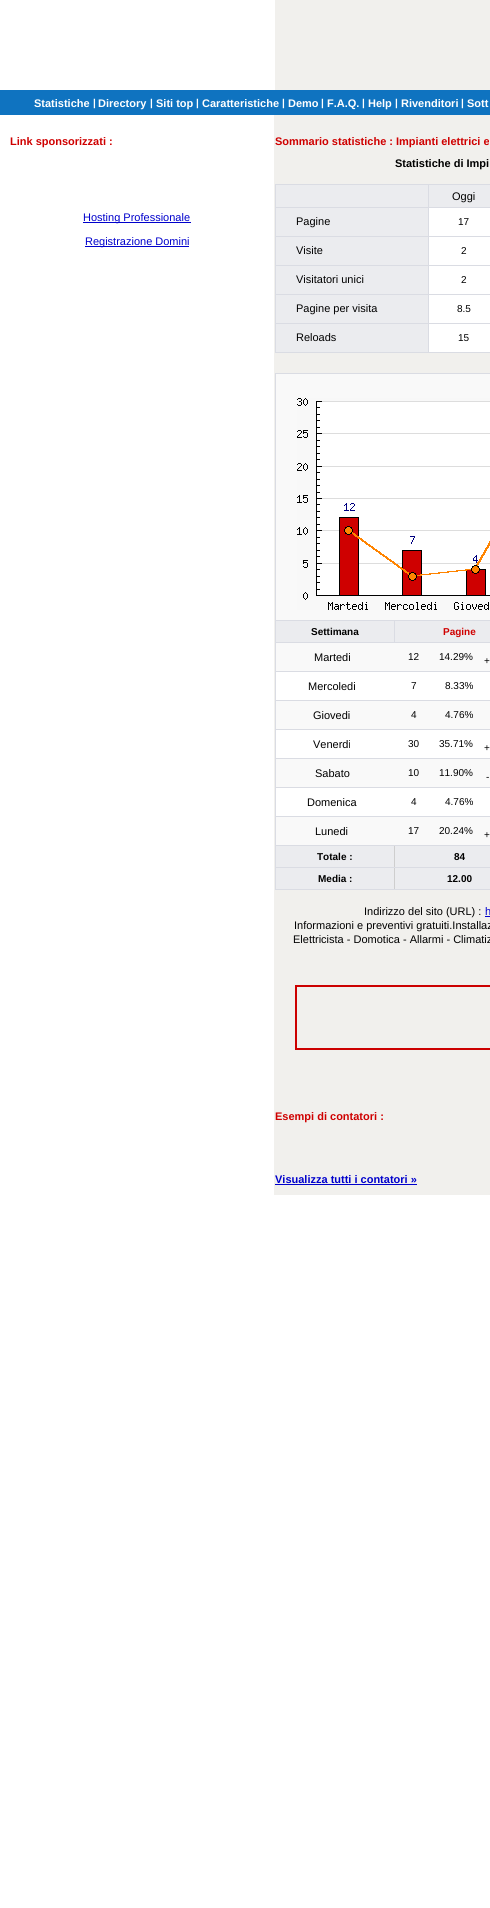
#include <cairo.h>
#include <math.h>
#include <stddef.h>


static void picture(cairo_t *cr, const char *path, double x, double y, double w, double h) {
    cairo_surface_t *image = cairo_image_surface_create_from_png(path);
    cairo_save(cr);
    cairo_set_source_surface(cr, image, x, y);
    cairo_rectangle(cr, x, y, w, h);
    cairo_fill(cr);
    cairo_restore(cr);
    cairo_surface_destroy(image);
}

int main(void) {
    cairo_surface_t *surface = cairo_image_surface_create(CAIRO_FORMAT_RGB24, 490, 1908);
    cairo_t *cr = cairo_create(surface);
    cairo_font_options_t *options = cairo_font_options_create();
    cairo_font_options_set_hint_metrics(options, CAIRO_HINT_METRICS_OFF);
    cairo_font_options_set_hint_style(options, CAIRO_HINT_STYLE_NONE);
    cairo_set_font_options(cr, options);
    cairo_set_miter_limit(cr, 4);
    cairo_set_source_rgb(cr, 1, 1, 1);
    cairo_paint(cr);
    cairo_set_source_rgb(cr, 0.945, 0.941, 0.929);
    cairo_rectangle(cr, 275, 0, 215, 90);
    cairo_fill(cr);
    cairo_set_source_rgb(cr, 0.059, 0.451, 0.753);
    cairo_rectangle(cr, 0, 90, 490, 25);
    cairo_fill(cr);
    cairo_select_font_face(cr, "Liberation Sans", CAIRO_FONT_SLANT_NORMAL, CAIRO_FONT_WEIGHT_BOLD);
    cairo_set_font_size(cr, 11);
    cairo_set_source_rgb(cr, 1, 1, 1);
    cairo_move_to(cr, 34, 107);
    cairo_show_text(cr, "Statistiche");
    cairo_set_font_size(cr, 10);
    cairo_move_to(cr, 93, 106);
    cairo_show_text(cr, "|");
    cairo_set_font_size(cr, 11);
    cairo_move_to(cr, 98, 107);
    cairo_show_text(cr, "Directory");
    cairo_set_font_size(cr, 10);
    cairo_move_to(cr, 150, 106);
    cairo_show_text(cr, "|");
    cairo_set_font_size(cr, 11);
    cairo_move_to(cr, 156, 107);
    cairo_show_text(cr, "Siti top");
    cairo_set_font_size(cr, 10);
    cairo_move_to(cr, 196, 106);
    cairo_show_text(cr, "|");
    cairo_set_font_size(cr, 11);
    cairo_move_to(cr, 202, 107);
    cairo_show_text(cr, "Caratteristiche");
    cairo_set_font_size(cr, 10);
    cairo_move_to(cr, 282, 106);
    cairo_show_text(cr, "|");
    cairo_set_font_size(cr, 11);
    cairo_move_to(cr, 288, 107);
    cairo_show_text(cr, "Demo");
    cairo_set_font_size(cr, 10);
    cairo_move_to(cr, 321, 106);
    cairo_show_text(cr, "|");
    cairo_set_font_size(cr, 11);
    cairo_move_to(cr, 327, 107);
    cairo_show_text(cr, "F.A.Q.");
    cairo_set_font_size(cr, 10);
    cairo_move_to(cr, 362, 106);
    cairo_show_text(cr, "|");
    cairo_set_font_size(cr, 11);
    cairo_move_to(cr, 368, 107);
    cairo_show_text(cr, "Help");
    cairo_set_font_size(cr, 10);
    cairo_move_to(cr, 395, 106);
    cairo_show_text(cr, "|");
    cairo_set_font_size(cr, 11);
    cairo_move_to(cr, 401, 107);
    cairo_show_text(cr, "Rivenditori");
    cairo_set_font_size(cr, 10);
    cairo_move_to(cr, 461, 106);
    cairo_show_text(cr, "|");
    cairo_set_font_size(cr, 11);
    cairo_move_to(cr, 467, 107);
    cairo_show_text(cr, "Sott");
    cairo_set_source_rgb(cr, 0.812, 0, 0);
    cairo_move_to(cr, 10, 145);
    cairo_show_text(cr, "Link sponsorizzati :");
    cairo_set_source_rgb(cr, 0, 0, 0.8);
    cairo_rectangle(cr, 83, 222, 108, 1);
    cairo_fill(cr);
    cairo_select_font_face(cr, "Liberation Sans", CAIRO_FONT_SLANT_NORMAL, CAIRO_FONT_WEIGHT_NORMAL);
    cairo_move_to(cr, 83, 221);
    cairo_show_text(cr, "Hosting Professionale");
    cairo_rectangle(cr, 85, 246, 104, 1);
    cairo_fill(cr);
    cairo_move_to(cr, 85, 245);
    cairo_show_text(cr, "Registrazione Domini");
    cairo_set_source_rgb(cr, 0.945, 0.941, 0.929);
    cairo_rectangle(cr, 274, 115, 216, 1080);
    cairo_fill(cr);
    cairo_select_font_face(cr, "Liberation Sans", CAIRO_FONT_SLANT_NORMAL, CAIRO_FONT_WEIGHT_BOLD);
    cairo_set_source_rgb(cr, 0.812, 0, 0);
    cairo_move_to(cr, 275, 145);
    cairo_show_text(cr, "Sommario statistiche : Impianti elettrici e");
    cairo_set_source_rgb(cr, 0, 0, 0);
    cairo_move_to(cr, 395, 167);
    cairo_show_text(cr, "Statistiche di Impi");
    cairo_set_source_rgb(cr, 0.855, 0.863, 0.89);
    cairo_rectangle(cr, 275, 184, 215, 169);
    cairo_fill(cr);
    cairo_set_source_rgb(cr, 0.918, 0.922, 0.937);
    cairo_rectangle(cr, 276, 185, 152, 22);
    cairo_fill(cr);
    cairo_rectangle(cr, 429, 185, 61, 22);
    cairo_fill(cr);
    cairo_select_font_face(cr, "Liberation Sans", CAIRO_FONT_SLANT_NORMAL, CAIRO_FONT_WEIGHT_NORMAL);
    cairo_set_source_rgb(cr, 0, 0, 0);
    cairo_move_to(cr, 452, 200);
    cairo_show_text(cr, "Oggi");
    cairo_set_source_rgb(cr, 0.918, 0.922, 0.937);
    cairo_rectangle(cr, 276, 208, 152, 28);
    cairo_fill(cr);
    cairo_set_source_rgb(cr, 0, 0, 0);
    cairo_move_to(cr, 296, 225);
    cairo_show_text(cr, "Pagine");
    cairo_set_source_rgb(cr, 1, 1, 1);
    cairo_rectangle(cr, 429, 208, 61, 28);
    cairo_fill(cr);
    cairo_set_font_size(cr, 10);
    cairo_set_source_rgb(cr, 0, 0, 0);
    cairo_move_to(cr, 458, 225);
    cairo_show_text(cr, "17");
    cairo_set_source_rgb(cr, 0.918, 0.922, 0.937);
    cairo_rectangle(cr, 276, 237, 152, 28);
    cairo_fill(cr);
    cairo_set_font_size(cr, 11);
    cairo_set_source_rgb(cr, 0, 0, 0);
    cairo_move_to(cr, 296, 254);
    cairo_show_text(cr, "Visite");
    cairo_set_source_rgb(cr, 1, 1, 1);
    cairo_rectangle(cr, 429, 237, 61, 28);
    cairo_fill(cr);
    cairo_set_font_size(cr, 10);
    cairo_set_source_rgb(cr, 0, 0, 0);
    cairo_move_to(cr, 461, 254);
    cairo_show_text(cr, "2");
    cairo_set_source_rgb(cr, 0.918, 0.922, 0.937);
    cairo_rectangle(cr, 276, 266, 152, 28);
    cairo_fill(cr);
    cairo_set_font_size(cr, 11);
    cairo_set_source_rgb(cr, 0, 0, 0);
    cairo_move_to(cr, 296, 283);
    cairo_show_text(cr, "Visitatori unici");
    cairo_set_source_rgb(cr, 1, 1, 1);
    cairo_rectangle(cr, 429, 266, 61, 28);
    cairo_fill(cr);
    cairo_set_font_size(cr, 10);
    cairo_set_source_rgb(cr, 0, 0, 0);
    cairo_move_to(cr, 461, 283);
    cairo_show_text(cr, "2");
    cairo_set_source_rgb(cr, 0.918, 0.922, 0.937);
    cairo_rectangle(cr, 276, 295, 152, 28);
    cairo_fill(cr);
    cairo_set_font_size(cr, 11);
    cairo_set_source_rgb(cr, 0, 0, 0);
    cairo_move_to(cr, 296, 312);
    cairo_show_text(cr, "Pagine per visita");
    cairo_set_source_rgb(cr, 1, 1, 1);
    cairo_rectangle(cr, 429, 295, 61, 28);
    cairo_fill(cr);
    cairo_set_font_size(cr, 10);
    cairo_set_source_rgb(cr, 0, 0, 0);
    cairo_move_to(cr, 457, 312);
    cairo_show_text(cr, "8.5");
    cairo_set_source_rgb(cr, 0.918, 0.922, 0.937);
    cairo_rectangle(cr, 276, 324, 152, 28);
    cairo_fill(cr);
    cairo_set_font_size(cr, 11);
    cairo_set_source_rgb(cr, 0, 0, 0);
    cairo_move_to(cr, 296, 341);
    cairo_show_text(cr, "Reloads");
    cairo_set_source_rgb(cr, 1, 1, 1);
    cairo_rectangle(cr, 429, 324, 61, 28);
    cairo_fill(cr);
    cairo_set_font_size(cr, 10);
    cairo_set_source_rgb(cr, 0, 0, 0);
    cairo_move_to(cr, 458, 341);
    cairo_show_text(cr, "15");
    cairo_set_source_rgb(cr, 0.855, 0.863, 0.89);
    cairo_rectangle(cr, 275, 373, 215, 517);
    cairo_fill(cr);
    cairo_set_source_rgb(cr, 0.973, 0.973, 0.973);
    cairo_rectangle(cr, 276, 374, 214, 246);
    cairo_fill(cr);
    picture(cr, "img1.png", 297, 398, 193, 212);
    cairo_set_source_rgb(cr, 0.918, 0.922, 0.937);
    cairo_rectangle(cr, 276, 621, 118, 21);
    cairo_fill(cr);
    cairo_select_font_face(cr, "Liberation Sans", CAIRO_FONT_SLANT_NORMAL, CAIRO_FONT_WEIGHT_BOLD);
    cairo_set_source_rgb(cr, 0, 0, 0);
    cairo_move_to(cr, 311, 635);
    cairo_show_text(cr, "Settimana");
    cairo_set_source_rgb(cr, 0.918, 0.922, 0.937);
    cairo_rectangle(cr, 395, 621, 95, 21);
    cairo_fill(cr);
    cairo_set_source_rgb(cr, 0.812, 0, 0);
    cairo_move_to(cr, 443, 635);
    cairo_show_text(cr, "Pagine");
    cairo_set_source_rgb(cr, 0.973, 0.973, 0.973);
    cairo_rectangle(cr, 276, 643, 214, 28);
    cairo_fill(cr);
    cairo_select_font_face(cr, "Liberation Sans", CAIRO_FONT_SLANT_NORMAL, CAIRO_FONT_WEIGHT_NORMAL);
    cairo_set_font_size(cr, 11);
    cairo_set_source_rgb(cr, 0, 0, 0);
    cairo_move_to(cr, 314, 661);
    cairo_show_text(cr, "Martedi");
    cairo_set_font_size(cr, 10);
    cairo_move_to(cr, 408, 660);
    cairo_show_text(cr, "12");
    cairo_move_to(cr, 439, 660);
    cairo_show_text(cr, "14.29%");
    cairo_move_to(cr, 484, 664);
    cairo_show_text(cr, "+");
    cairo_set_source_rgb(cr, 1, 1, 1);
    cairo_rectangle(cr, 276, 672, 214, 28);
    cairo_fill(cr);
    cairo_set_font_size(cr, 11);
    cairo_set_source_rgb(cr, 0, 0, 0);
    cairo_move_to(cr, 308, 690);
    cairo_show_text(cr, "Mercoledi");
    cairo_set_font_size(cr, 10);
    cairo_move_to(cr, 411, 689);
    cairo_show_text(cr, "7");
    cairo_move_to(cr, 445, 689);
    cairo_show_text(cr, "8.33%");
    cairo_set_source_rgb(cr, 0.973, 0.973, 0.973);
    cairo_rectangle(cr, 276, 701, 214, 28);
    cairo_fill(cr);
    cairo_set_font_size(cr, 11);
    cairo_set_source_rgb(cr, 0, 0, 0);
    cairo_move_to(cr, 313, 719);
    cairo_show_text(cr, "Giovedi");
    cairo_set_font_size(cr, 10);
    cairo_move_to(cr, 411, 718);
    cairo_show_text(cr, "4");
    cairo_move_to(cr, 445, 718);
    cairo_show_text(cr, "4.76%");
    cairo_set_source_rgb(cr, 1, 1, 1);
    cairo_rectangle(cr, 276, 730, 214, 28);
    cairo_fill(cr);
    cairo_set_font_size(cr, 11);
    cairo_set_source_rgb(cr, 0, 0, 0);
    cairo_move_to(cr, 313, 748);
    cairo_show_text(cr, "Venerdi");
    cairo_set_font_size(cr, 10);
    cairo_move_to(cr, 408, 747);
    cairo_show_text(cr, "30");
    cairo_move_to(cr, 439, 747);
    cairo_show_text(cr, "35.71%");
    cairo_move_to(cr, 484, 751);
    cairo_show_text(cr, "+");
    cairo_set_source_rgb(cr, 0.973, 0.973, 0.973);
    cairo_rectangle(cr, 276, 759, 214, 28);
    cairo_fill(cr);
    cairo_set_font_size(cr, 11);
    cairo_set_source_rgb(cr, 0, 0, 0);
    cairo_move_to(cr, 315, 777);
    cairo_show_text(cr, "Sabato");
    cairo_set_font_size(cr, 10);
    cairo_move_to(cr, 408, 776);
    cairo_show_text(cr, "10");
    cairo_move_to(cr, 439, 776);
    cairo_show_text(cr, "11.90%");
    cairo_move_to(cr, 486, 780);
    cairo_show_text(cr, "-");
    cairo_set_source_rgb(cr, 1, 1, 1);
    cairo_rectangle(cr, 276, 788, 214, 28);
    cairo_fill(cr);
    cairo_set_font_size(cr, 11);
    cairo_set_source_rgb(cr, 0, 0, 0);
    cairo_move_to(cr, 307, 806);
    cairo_show_text(cr, "Domenica");
    cairo_set_font_size(cr, 10);
    cairo_move_to(cr, 411, 805);
    cairo_show_text(cr, "4");
    cairo_move_to(cr, 445, 805);
    cairo_show_text(cr, "4.76%");
    cairo_set_source_rgb(cr, 0.973, 0.973, 0.973);
    cairo_rectangle(cr, 276, 817, 214, 28);
    cairo_fill(cr);
    cairo_set_font_size(cr, 11);
    cairo_set_source_rgb(cr, 0, 0, 0);
    cairo_move_to(cr, 315, 835);
    cairo_show_text(cr, "Lunedi");
    cairo_set_font_size(cr, 10);
    cairo_move_to(cr, 408, 834);
    cairo_show_text(cr, "17");
    cairo_move_to(cr, 439, 834);
    cairo_show_text(cr, "20.24%");
    cairo_move_to(cr, 484, 838);
    cairo_show_text(cr, "+");
    cairo_set_source_rgb(cr, 0.808, 0.808, 0.808);
    cairo_rectangle(cr, 394, 846, 1, 21);
    cairo_fill(cr);
    cairo_set_source_rgb(cr, 0.918, 0.922, 0.937);
    cairo_rectangle(cr, 276, 846, 118, 21);
    cairo_fill(cr);
    cairo_select_font_face(cr, "Liberation Sans", CAIRO_FONT_SLANT_NORMAL, CAIRO_FONT_WEIGHT_BOLD);
    cairo_set_source_rgb(cr, 0, 0, 0);
    cairo_move_to(cr, 317, 860);
    cairo_show_text(cr, "Totale :");
    cairo_set_source_rgb(cr, 0.918, 0.922, 0.937);
    cairo_rectangle(cr, 395, 846, 95, 21);
    cairo_fill(cr);
    cairo_set_source_rgb(cr, 0, 0, 0);
    cairo_move_to(cr, 454, 860);
    cairo_show_text(cr, "84");
    cairo_set_source_rgb(cr, 0.808, 0.808, 0.808);
    cairo_rectangle(cr, 394, 868, 1, 21);
    cairo_fill(cr);
    cairo_set_source_rgb(cr, 0.918, 0.922, 0.937);
    cairo_rectangle(cr, 276, 868, 118, 21);
    cairo_fill(cr);
    cairo_set_source_rgb(cr, 0, 0, 0);
    cairo_move_to(cr, 318, 882);
    cairo_show_text(cr, "Media :");
    cairo_set_source_rgb(cr, 0.918, 0.922, 0.937);
    cairo_rectangle(cr, 395, 868, 95, 21);
    cairo_fill(cr);
    cairo_set_source_rgb(cr, 0, 0, 0);
    cairo_move_to(cr, 447, 882);
    cairo_show_text(cr, "12.00");
    cairo_select_font_face(cr, "Liberation Sans", CAIRO_FONT_SLANT_NORMAL, CAIRO_FONT_WEIGHT_NORMAL);
    cairo_set_font_size(cr, 11);
    cairo_move_to(cr, 364, 915);
    cairo_show_text(cr, "Indirizzo del sito (URL) :");
    cairo_set_source_rgb(cr, 0, 0, 0.8);
    cairo_move_to(cr, 485, 915);
    cairo_show_text(cr, "h");
    cairo_rectangle(cr, 485, 916, 5, 1);
    cairo_fill(cr);
    cairo_set_source_rgb(cr, 0, 0, 0);
    cairo_move_to(cr, 294, 929);
    cairo_show_text(cr, "Informazioni e preventivi gratuiti.Installaz");
    cairo_move_to(cr, 293, 943);
    cairo_show_text(cr, "Elettricista - Domotica - Allarmi - Climatiz");
    cairo_rectangle(cr, 295.5, 985.5, 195, 64);
    cairo_set_source_rgb(cr, 0.8, 0, 0);
    cairo_set_line_width(cr, 1);
    cairo_stroke(cr);
    cairo_rectangle(cr, 296.5, 986.5, 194, 62);
    cairo_stroke(cr);
    cairo_select_font_face(cr, "Liberation Sans", CAIRO_FONT_SLANT_NORMAL, CAIRO_FONT_WEIGHT_BOLD);
    cairo_set_source_rgb(cr, 0.812, 0, 0);
    cairo_move_to(cr, 275, 1120);
    cairo_show_text(cr, "Esempi di contatori :");
    cairo_set_source_rgb(cr, 0, 0, 0.8);
    cairo_move_to(cr, 275, 1183);
    cairo_show_text(cr, "Visualizza tutti i contatori »");
    cairo_rectangle(cr, 275, 1184, 142, 1);
    cairo_fill(cr);
    cairo_surface_write_to_png(surface, "page.png");
    cairo_font_options_destroy(options);
    cairo_destroy(cr);
    cairo_surface_destroy(surface);
    return 0;
}
